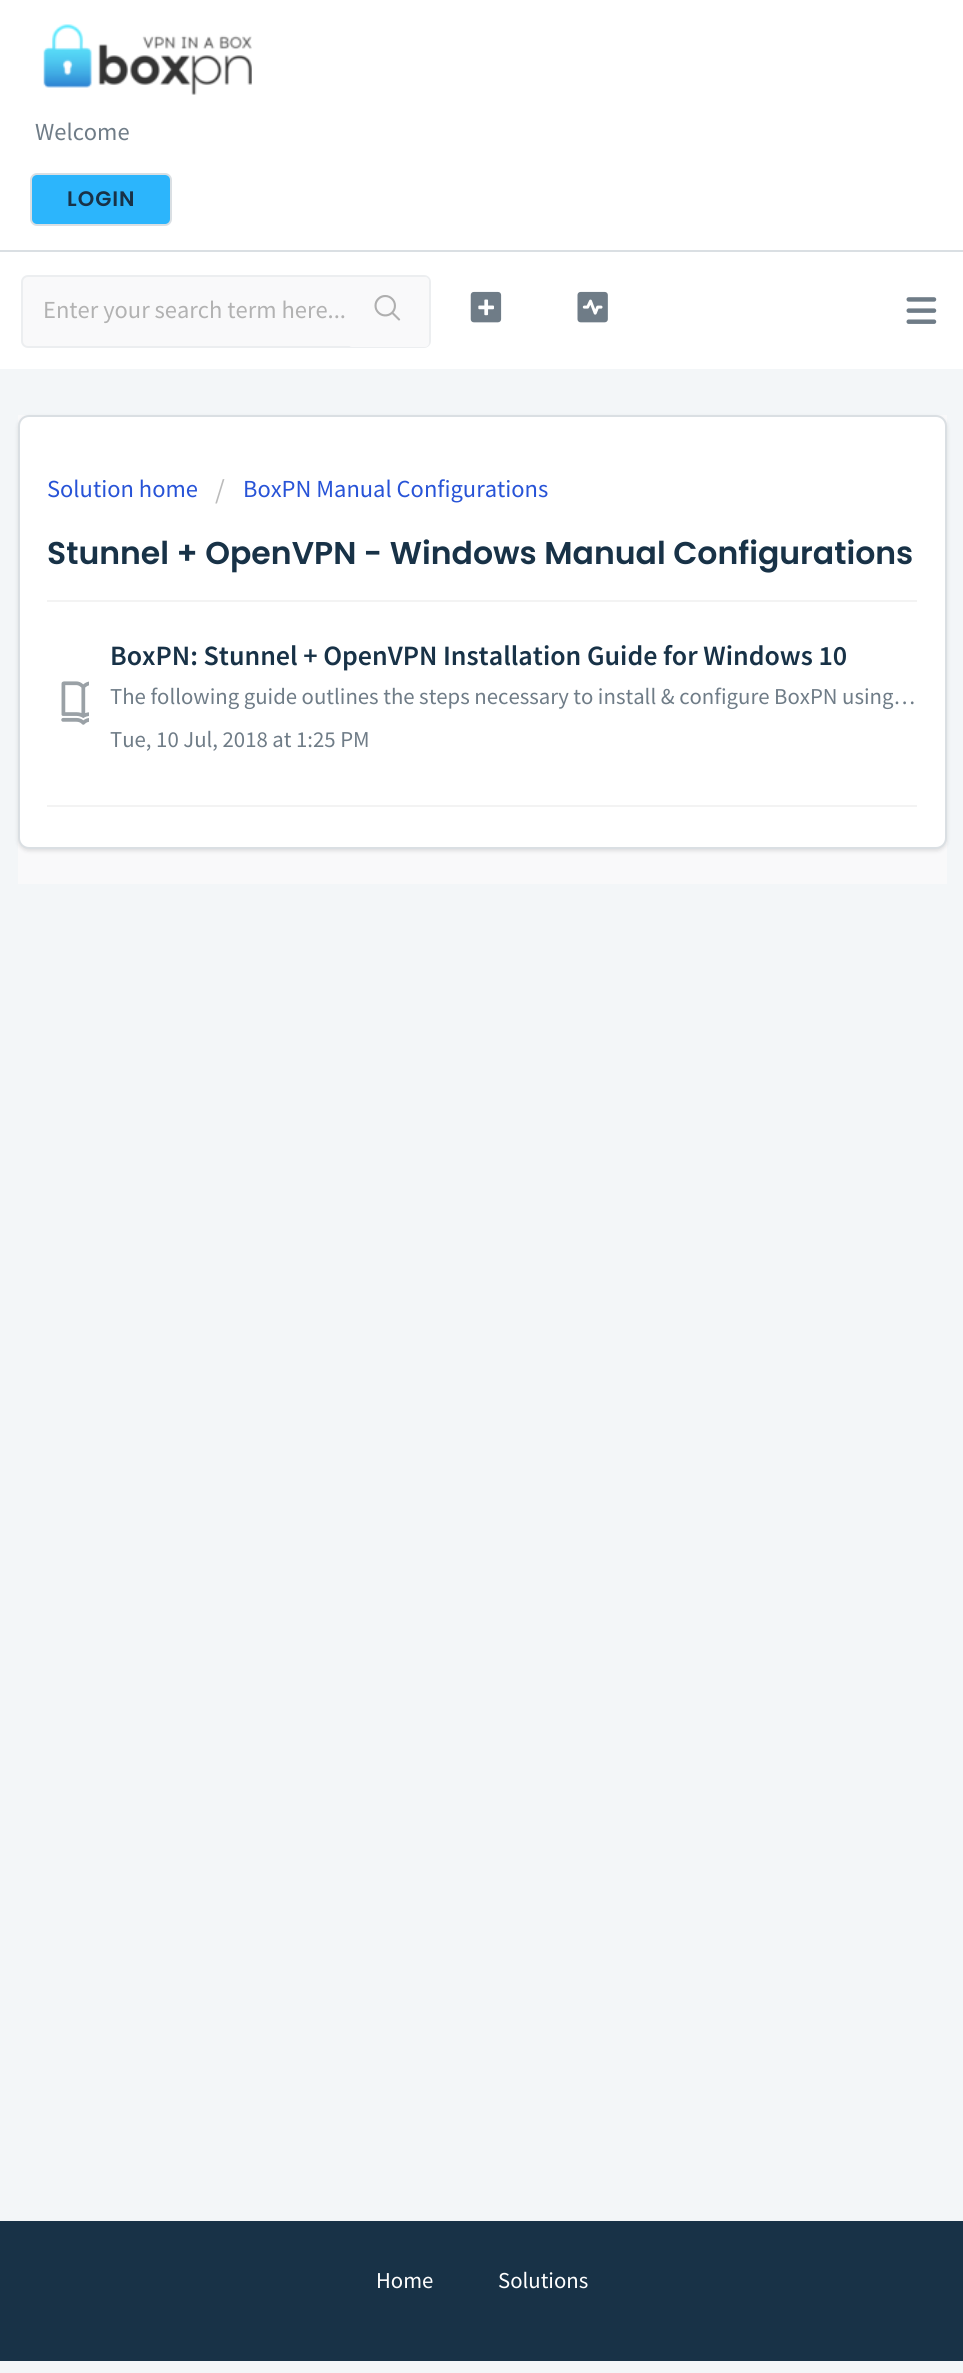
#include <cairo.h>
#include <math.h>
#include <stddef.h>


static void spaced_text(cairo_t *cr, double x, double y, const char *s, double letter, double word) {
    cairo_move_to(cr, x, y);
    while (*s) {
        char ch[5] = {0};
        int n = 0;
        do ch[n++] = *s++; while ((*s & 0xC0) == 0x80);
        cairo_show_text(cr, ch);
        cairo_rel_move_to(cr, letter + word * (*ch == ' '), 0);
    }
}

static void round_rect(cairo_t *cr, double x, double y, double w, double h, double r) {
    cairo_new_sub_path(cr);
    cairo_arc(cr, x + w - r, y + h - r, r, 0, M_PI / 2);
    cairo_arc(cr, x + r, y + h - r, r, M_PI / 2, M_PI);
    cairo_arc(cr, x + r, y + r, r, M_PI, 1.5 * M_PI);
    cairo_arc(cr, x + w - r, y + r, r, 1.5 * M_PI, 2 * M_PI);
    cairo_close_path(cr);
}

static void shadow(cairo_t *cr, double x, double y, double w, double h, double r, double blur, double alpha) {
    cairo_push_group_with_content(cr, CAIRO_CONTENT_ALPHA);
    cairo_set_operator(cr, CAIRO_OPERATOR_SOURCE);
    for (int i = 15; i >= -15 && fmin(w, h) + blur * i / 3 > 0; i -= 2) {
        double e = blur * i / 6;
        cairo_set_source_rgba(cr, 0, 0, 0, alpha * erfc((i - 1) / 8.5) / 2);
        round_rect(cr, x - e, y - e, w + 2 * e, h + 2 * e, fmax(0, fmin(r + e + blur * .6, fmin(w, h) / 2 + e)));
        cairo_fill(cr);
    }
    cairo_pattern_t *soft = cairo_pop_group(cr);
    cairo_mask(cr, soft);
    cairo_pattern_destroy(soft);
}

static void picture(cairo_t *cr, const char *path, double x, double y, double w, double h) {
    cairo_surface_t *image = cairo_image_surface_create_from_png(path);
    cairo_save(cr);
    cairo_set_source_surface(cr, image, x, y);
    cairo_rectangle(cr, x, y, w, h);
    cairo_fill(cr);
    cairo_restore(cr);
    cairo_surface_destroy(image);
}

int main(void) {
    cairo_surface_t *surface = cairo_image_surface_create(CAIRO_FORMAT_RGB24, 963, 2373);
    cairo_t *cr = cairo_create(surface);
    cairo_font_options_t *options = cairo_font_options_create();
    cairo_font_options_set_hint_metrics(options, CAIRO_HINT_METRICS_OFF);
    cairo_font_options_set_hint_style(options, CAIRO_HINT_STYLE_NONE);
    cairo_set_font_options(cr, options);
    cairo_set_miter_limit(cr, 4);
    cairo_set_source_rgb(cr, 0.953, 0.961, 0.969);
    cairo_paint(cr);
    cairo_set_source_rgb(cr, 1, 1, 1);
    cairo_rectangle(cr, 0, 0, 963, 250);
    cairo_fill(cr);
    cairo_set_source_rgb(cr, 0.855, 0.875, 0.89);
    cairo_rectangle(cr, 0, 250, 963, 2);
    cairo_fill(cr);
    picture(cr, "img1.png", 43, 24, 209, 71);
    cairo_select_font_face(cr, "Source Sans Pro", CAIRO_FONT_SLANT_NORMAL, CAIRO_FONT_WEIGHT_NORMAL);
    cairo_set_font_size(cr, 24.5);
    cairo_set_source_rgb(cr, 0.435, 0.486, 0.529);
    cairo_move_to(cr, 35, 140);
    cairo_show_text(cr, "Welcome");
    cairo_set_source_rgb(cr, 0.173, 0.71, 0.988);
    round_rect(cr, 31, 174, 140, 51, 6);
    cairo_fill_preserve(cr);
    cairo_set_source_rgb(cr, 0.855, 0.875, 0.89);
    cairo_stroke(cr);
    cairo_select_font_face(cr, "Poppins SemiBold", CAIRO_FONT_SLANT_NORMAL, CAIRO_FONT_WEIGHT_NORMAL);
    cairo_set_font_size(cr, 21);
    cairo_set_source_rgb(cr, 0.094, 0.196, 0.278);
    spaced_text(cr, 67, 206, "LOGIN", 1, 0);
    cairo_set_source_rgb(cr, 1, 1, 1);
    cairo_rectangle(cr, 0, 252, 963, 117);
    cairo_fill(cr);
    picture(cr, "img2.png", 906, 297, 31, 27);
    cairo_set_source_rgb(cr, 0.973, 0.976, 0.98);
    round_rect(cr, 22, 276, 408, 71, 6);
    cairo_fill_preserve(cr);
    cairo_set_source_rgb(cr, 0.922, 0.933, 0.941);
    cairo_stroke(cr);
    cairo_select_font_face(cr, "Source Sans Pro", CAIRO_FONT_SLANT_NORMAL, CAIRO_FONT_WEIGHT_NORMAL);
    cairo_set_font_size(cr, 24.5);
    cairo_set_source_rgb(cr, 0.698, 0.698, 0.698);
    cairo_move_to(cr, 43, 318);
    cairo_show_text(cr, "Enter your search term here...");
    cairo_set_source_rgb(cr, 0.973, 0.976, 0.98);
    round_rect(cr, 348, 277, 81, 70, 4);
    cairo_fill(cr);
    picture(cr, "img3.png", 374, 295, 27, 26);
    picture(cr, "img4.png", 470, 291, 32, 32);
    picture(cr, "img5.png", 577, 291, 31, 32);
    cairo_rectangle(cr, 18, 415, 929, 469);
    cairo_fill(cr);
    cairo_set_source_rgb(cr, 0.247, 0.247, 0.267);
    shadow(cr, 18, 417, 929, 434, 11, 2, 0.15);
    cairo_set_source_rgb(cr, 1, 1, 1);
    round_rect(cr, 19, 416, 927, 432, 10);
    cairo_fill_preserve(cr);
    cairo_set_source_rgb(cr, 0.855, 0.875, 0.89);
    cairo_stroke(cr);
    cairo_set_source_rgb(cr, 0.153, 0.325, 0.843);
    cairo_move_to(cr, 47, 497);
    cairo_show_text(cr, "Solution home");
    cairo_set_font_size(cr, 28);
    cairo_set_source_rgb(cr, 0.733, 0.733, 0.733);
    cairo_move_to(cr, 215, 499);
    cairo_show_text(cr, "/");
    cairo_set_font_size(cr, 24.5);
    cairo_set_source_rgb(cr, 0.153, 0.325, 0.843);
    cairo_move_to(cr, 243, 497);
    cairo_show_text(cr, "BoxPN Manual Configurations");
    cairo_select_font_face(cr, "Poppins SemiBold", CAIRO_FONT_SLANT_NORMAL, CAIRO_FONT_WEIGHT_NORMAL);
    cairo_set_font_size(cr, 31.5);
    cairo_set_source_rgb(cr, 0.094, 0.196, 0.278);
    cairo_move_to(cr, 47, 564);
    cairo_show_text(cr, "Stunnel + OpenVPN - Windows Manual Configurations");
    cairo_set_source_rgb(cr, 0.953, 0.953, 0.953);
    cairo_rectangle(cr, 47, 805, 870, 2);
    cairo_fill(cr);
    cairo_rectangle(cr, 47, 600, 870, 2);
    cairo_fill(cr);
    cairo_select_font_face(cr, "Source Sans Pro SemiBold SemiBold", CAIRO_FONT_SLANT_NORMAL, CAIRO_FONT_WEIGHT_NORMAL);
    cairo_set_font_size(cr, 28);
    cairo_set_source_rgb(cr, 0.094, 0.196, 0.278);
    cairo_move_to(cr, 110, 665);
    cairo_show_text(cr, "BoxPN: Stunnel + OpenVPN Installation Guide for Windows 10");
    picture(cr, "img6.png", 61, 681, 28, 44);
    cairo_select_font_face(cr, "Source Sans Pro", CAIRO_FONT_SLANT_NORMAL, CAIRO_FONT_WEIGHT_NORMAL);
    cairo_set_font_size(cr, 22.75);
    cairo_set_source_rgb(cr, 0.435, 0.486, 0.529);
    cairo_move_to(cr, 110, 704);
    cairo_show_text(cr, "The following guide outlines the steps necessary to install & configure BoxPN using…");
    cairo_move_to(cr, 110, 747);
    cairo_show_text(cr, "Tue, 10 Jul, 2018 at 1:25 PM");
    cairo_set_source_rgb(cr, 0.094, 0.196, 0.278);
    cairo_rectangle(cr, 0, 2221, 963, 140);
    cairo_fill(cr);
    cairo_set_source_rgb(cr, 1, 1, 1);
    cairo_move_to(cr, 376, 2288);
    cairo_show_text(cr, "Home");
    cairo_move_to(cr, 498, 2288);
    cairo_show_text(cr, "Solutions");
    cairo_surface_write_to_png(surface, "page.png");
    cairo_font_options_destroy(options);
    cairo_destroy(cr);
    cairo_surface_destroy(surface);
    return 0;
}
